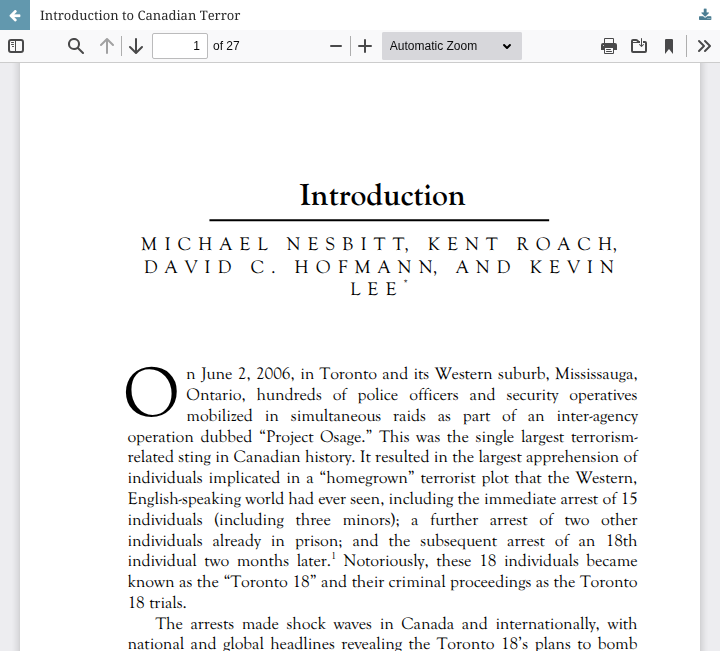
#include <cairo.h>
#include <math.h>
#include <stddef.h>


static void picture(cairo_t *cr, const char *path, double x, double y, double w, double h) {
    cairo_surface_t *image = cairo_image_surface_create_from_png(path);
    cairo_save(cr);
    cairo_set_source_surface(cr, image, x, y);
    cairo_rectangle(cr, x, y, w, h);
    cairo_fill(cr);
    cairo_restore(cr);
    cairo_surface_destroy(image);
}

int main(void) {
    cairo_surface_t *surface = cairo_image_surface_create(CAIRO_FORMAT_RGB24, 720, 651);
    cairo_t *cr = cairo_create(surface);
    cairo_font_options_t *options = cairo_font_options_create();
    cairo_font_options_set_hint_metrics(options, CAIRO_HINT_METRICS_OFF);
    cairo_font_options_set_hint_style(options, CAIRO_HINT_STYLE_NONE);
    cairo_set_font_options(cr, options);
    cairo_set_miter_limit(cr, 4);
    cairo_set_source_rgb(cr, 1, 1, 1);
    cairo_paint(cr);
    cairo_set_source_rgb(cr, 0.384, 0.596, 0.682);
    cairo_rectangle(cr, 0, 0, 30, 30);
    cairo_fill(cr);
    picture(cr, "img1.png", 9, 10, 12, 12);
    cairo_select_font_face(cr, "Noto Serif", CAIRO_FONT_SLANT_NORMAL, CAIRO_FONT_WEIGHT_NORMAL);
    cairo_set_font_size(cr, 13);
    cairo_set_source_rgb(cr, 0.161, 0.161, 0.161);
    cairo_move_to(cr, 40, 20);
    cairo_show_text(cr, "Introduction to Canadian Terror");
    picture(cr, "img2.png", 699, 8, 13, 12);
    picture(cr, "img3.png", 0, 30, 720, 621);
    cairo_surface_write_to_png(surface, "page.png");
    cairo_font_options_destroy(options);
    cairo_destroy(cr);
    cairo_surface_destroy(surface);
    return 0;
}
